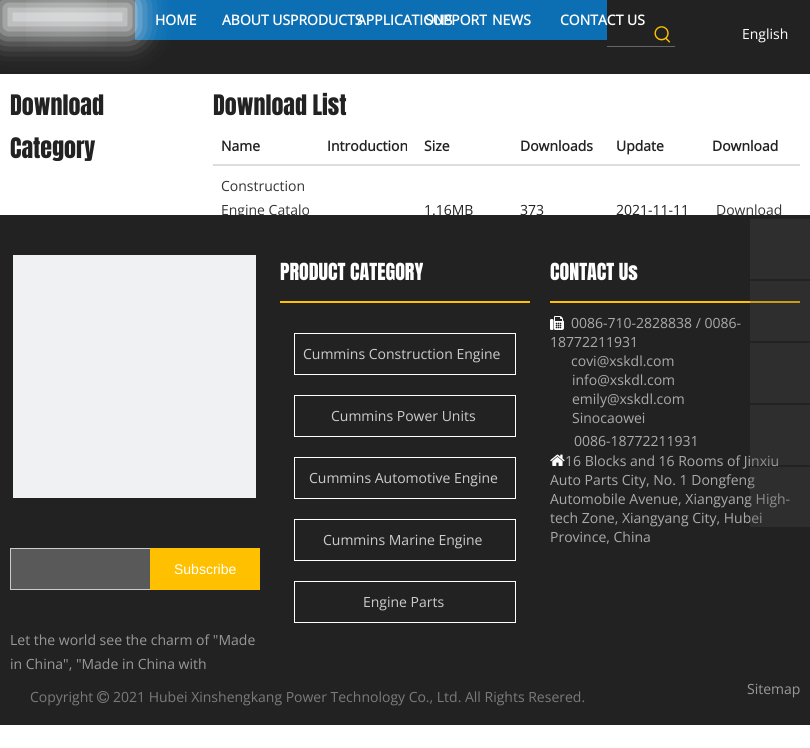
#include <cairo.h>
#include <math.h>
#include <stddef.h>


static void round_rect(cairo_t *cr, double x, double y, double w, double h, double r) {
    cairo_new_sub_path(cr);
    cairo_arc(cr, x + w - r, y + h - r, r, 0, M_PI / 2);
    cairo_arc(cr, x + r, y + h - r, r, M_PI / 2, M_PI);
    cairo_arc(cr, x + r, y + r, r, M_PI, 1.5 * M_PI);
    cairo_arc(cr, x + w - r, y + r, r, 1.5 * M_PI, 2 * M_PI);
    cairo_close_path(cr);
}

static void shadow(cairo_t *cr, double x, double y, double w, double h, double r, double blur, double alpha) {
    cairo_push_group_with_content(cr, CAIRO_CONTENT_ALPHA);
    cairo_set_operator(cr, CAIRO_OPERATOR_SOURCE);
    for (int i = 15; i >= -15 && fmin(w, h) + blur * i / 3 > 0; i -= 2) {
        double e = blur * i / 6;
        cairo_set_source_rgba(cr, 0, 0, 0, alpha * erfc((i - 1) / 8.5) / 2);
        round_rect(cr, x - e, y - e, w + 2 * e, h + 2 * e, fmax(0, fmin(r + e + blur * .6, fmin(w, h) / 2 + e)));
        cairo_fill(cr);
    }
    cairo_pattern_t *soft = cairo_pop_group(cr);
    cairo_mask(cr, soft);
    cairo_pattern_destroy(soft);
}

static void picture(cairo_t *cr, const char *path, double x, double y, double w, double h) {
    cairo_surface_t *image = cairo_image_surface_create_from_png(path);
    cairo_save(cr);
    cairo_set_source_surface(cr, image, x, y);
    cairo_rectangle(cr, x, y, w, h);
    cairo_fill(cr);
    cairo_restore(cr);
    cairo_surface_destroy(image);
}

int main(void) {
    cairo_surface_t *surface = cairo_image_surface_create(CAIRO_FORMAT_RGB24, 810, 748);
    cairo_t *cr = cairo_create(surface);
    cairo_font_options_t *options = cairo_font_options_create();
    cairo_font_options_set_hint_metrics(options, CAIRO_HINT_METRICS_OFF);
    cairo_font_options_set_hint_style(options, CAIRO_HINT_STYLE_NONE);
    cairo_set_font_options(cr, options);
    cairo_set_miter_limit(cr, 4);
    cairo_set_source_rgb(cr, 1, 1, 1);
    cairo_paint(cr);
    cairo_set_source_rgb(cr, 0.133, 0.133, 0.133);
    cairo_rectangle(cr, 0, 0, 810, 74);
    cairo_fill(cr);
    cairo_set_source_rgb(cr, 0.047, 0.435, 0.702);
    cairo_rectangle(cr, 135, 0, 472, 40);
    cairo_fill(cr);
    cairo_set_source_rgb(cr, 0.941, 0.945, 0.949);
    shadow(cr, 0, 0, 135, 34, 0, 15, 1);
    picture(cr, "img1.png", 26, 0, 81, 49);
    cairo_select_font_face(cr, "Open Sans", CAIRO_FONT_SLANT_NORMAL, CAIRO_FONT_WEIGHT_BOLD);
    cairo_set_font_size(cr, 14);
    cairo_set_source_rgb(cr, 1, 1, 1);
    cairo_move_to(cr, 155, 25);
    cairo_show_text(cr, "HOME");
    cairo_move_to(cr, 222, 25);
    cairo_show_text(cr, "ABOUT US");
    cairo_move_to(cr, 290, 25);
    cairo_show_text(cr, "PRODUCTS");
    cairo_move_to(cr, 357, 25);
    cairo_show_text(cr, "APPLICATIONS");
    cairo_move_to(cr, 425, 25);
    cairo_show_text(cr, "SUPPORT");
    cairo_move_to(cr, 492, 25);
    cairo_show_text(cr, "NEWS");
    cairo_move_to(cr, 560, 25);
    cairo_show_text(cr, "CONTACT US");
    cairo_set_source_rgb(cr, 0.4, 0.4, 0.4);
    cairo_rectangle(cr, 607, 46, 68, 1);
    cairo_fill(cr);
    picture(cr, "img2.png", 654, 26, 17, 17);
    cairo_select_font_face(cr, "Open Sans", CAIRO_FONT_SLANT_NORMAL, CAIRO_FONT_WEIGHT_NORMAL);
    cairo_set_source_rgb(cr, 1, 1, 1);
    cairo_move_to(cr, 742, 39);
    cairo_show_text(cr, "English");
    cairo_select_font_face(cr, "Anton", CAIRO_FONT_SLANT_NORMAL, CAIRO_FONT_WEIGHT_NORMAL);
    cairo_set_font_size(cr, 24);
    cairo_set_source_rgb(cr, 0.133, 0.133, 0.133);
    cairo_move_to(cr, 10, 115);
    cairo_show_text(cr, "Download");
    cairo_move_to(cr, 10, 158);
    cairo_show_text(cr, "Category");
    cairo_move_to(cr, 213, 115);
    cairo_show_text(cr, "Download List");
    cairo_select_font_face(cr, "Open Sans", CAIRO_FONT_SLANT_NORMAL, CAIRO_FONT_WEIGHT_BOLD);
    cairo_set_font_size(cr, 14);
    cairo_move_to(cr, 221, 151);
    cairo_show_text(cr, "Name");
    cairo_move_to(cr, 327, 151);
    cairo_show_text(cr, "Introduction");
    cairo_move_to(cr, 424, 151);
    cairo_show_text(cr, "Size");
    cairo_move_to(cr, 520, 151);
    cairo_show_text(cr, "Downloads");
    cairo_move_to(cr, 616, 151);
    cairo_show_text(cr, "Update");
    cairo_set_source_rgb(cr, 0.867, 0.867, 0.867);
    cairo_rectangle(cr, 213, 164, 587, 2);
    cairo_fill(cr);
    cairo_set_source_rgb(cr, 0.133, 0.133, 0.133);
    cairo_move_to(cr, 712, 151);
    cairo_show_text(cr, "Download");
    cairo_select_font_face(cr, "Open Sans", CAIRO_FONT_SLANT_NORMAL, CAIRO_FONT_WEIGHT_NORMAL);
    cairo_set_source_rgb(cr, 0.2, 0.2, 0.2);
    cairo_move_to(cr, 221, 191);
    cairo_show_text(cr, "Construction");
    cairo_save(cr);
    cairo_rectangle(cr, 213, 128, 587, 87);
    cairo_clip(cr);
    cairo_move_to(cr, 221, 215);
    cairo_show_text(cr, "Engine Catalo");
    cairo_set_source_rgb(cr, 0.133, 0.133, 0.133);
    cairo_move_to(cr, 424, 215);
    cairo_show_text(cr, "1.16MB");
    cairo_restore(cr);
    cairo_set_source_rgb(cr, 0.133, 0.133, 0.133);
    cairo_move_to(cr, 520, 215);
    cairo_show_text(cr, "373");
    cairo_move_to(cr, 616, 215);
    cairo_show_text(cr, "2021-11-11");
    cairo_save(cr);
    cairo_rectangle(cr, 213, 128, 587, 87);
    cairo_clip(cr);
    cairo_set_source_rgb(cr, 0.2, 0.2, 0.2);
    cairo_move_to(cr, 716, 215);
    cairo_show_text(cr, "Download");
    cairo_restore(cr);
    cairo_rectangle(cr, 0, 215, 810, 510);
    cairo_fill(cr);
    cairo_set_source_rgb(cr, 0.18, 0.18, 0.18);
    cairo_rectangle(cr, 750, 281, 60, 60);
    cairo_fill(cr);
    cairo_select_font_face(cr, "Anton", CAIRO_FONT_SLANT_NORMAL, CAIRO_FONT_WEIGHT_NORMAL);
    cairo_set_font_size(cr, 20);
    cairo_set_source_rgb(cr, 1, 1, 1);
    cairo_move_to(cr, 280, 280);
    cairo_show_text(cr, "PRODUCT CATEGORY");
    cairo_set_source_rgb(cr, 1, 0.753, 0.004);
    cairo_rectangle(cr, 280, 301, 250, 2);
    cairo_fill(cr);
    cairo_rectangle(cr, 294.5, 333.5, 221, 41);
    cairo_set_source_rgb(cr, 1, 1, 1);
    cairo_set_line_width(cr, 1);
    cairo_stroke(cr);
    cairo_select_font_face(cr, "Open Sans", CAIRO_FONT_SLANT_NORMAL, CAIRO_FONT_WEIGHT_NORMAL);
    cairo_set_font_size(cr, 14);
    cairo_set_source_rgb(cr, 0.8, 0.8, 0.8);
    cairo_move_to(cr, 303, 359);
    cairo_show_text(cr, "Cummins Construction Engine");
    cairo_rectangle(cr, 294.5, 395.5, 221, 41);
    cairo_set_source_rgb(cr, 1, 1, 1);
    cairo_stroke(cr);
    cairo_set_source_rgb(cr, 0.8, 0.8, 0.8);
    cairo_move_to(cr, 331, 421);
    cairo_show_text(cr, "Cummins Power Units");
    cairo_rectangle(cr, 294.5, 457.5, 221, 41);
    cairo_set_source_rgb(cr, 1, 1, 1);
    cairo_stroke(cr);
    cairo_set_source_rgb(cr, 0.8, 0.8, 0.8);
    cairo_move_to(cr, 309, 483);
    cairo_show_text(cr, "Cummins Automotive Engine");
    cairo_rectangle(cr, 294.5, 519.5, 221, 41);
    cairo_set_source_rgb(cr, 1, 1, 1);
    cairo_stroke(cr);
    cairo_set_source_rgb(cr, 0.8, 0.8, 0.8);
    cairo_move_to(cr, 323, 545);
    cairo_show_text(cr, "Cummins Marine Engine");
    cairo_rectangle(cr, 294.5, 581.5, 221, 41);
    cairo_set_source_rgb(cr, 1, 1, 1);
    cairo_stroke(cr);
    cairo_set_source_rgb(cr, 0.8, 0.8, 0.8);
    cairo_move_to(cr, 363, 607);
    cairo_show_text(cr, "Engine Parts");
    cairo_select_font_face(cr, "Anton", CAIRO_FONT_SLANT_NORMAL, CAIRO_FONT_WEIGHT_NORMAL);
    cairo_set_font_size(cr, 20);
    cairo_set_source_rgb(cr, 1, 1, 1);
    cairo_move_to(cr, 550, 280);
    cairo_show_text(cr, "CONTACT Us");
    cairo_set_source_rgb(cr, 1, 0.753, 0.004);
    cairo_rectangle(cr, 550, 301, 200, 2);
    cairo_fill(cr);
    cairo_set_source_rgb(cr, 0.788, 0.616, 0.09);
    cairo_rectangle(cr, 750, 301, 50, 2);
    cairo_fill(cr);
    picture(cr, "img3.png", 550, 316, 14, 14);
    cairo_select_font_face(cr, "Open Sans", CAIRO_FONT_SLANT_NORMAL, CAIRO_FONT_WEIGHT_NORMAL);
    cairo_set_font_size(cr, 14);
    cairo_set_source_rgb(cr, 0.667, 0.667, 0.667);
    cairo_move_to(cr, 571, 328);
    cairo_show_text(cr, "0086-710-2828838 / 0086-");
    cairo_move_to(cr, 550, 347);
    cairo_show_text(cr, "18772211931");
    cairo_select_font_face(cr, "FontAwesome", CAIRO_FONT_SLANT_NORMAL, CAIRO_FONT_WEIGHT_NORMAL);
    cairo_set_source_rgb(cr, 1, 1, 1);
    cairo_move_to(cr, 550, 366);
    cairo_show_text(cr, "");
    cairo_select_font_face(cr, "Open Sans", CAIRO_FONT_SLANT_NORMAL, CAIRO_FONT_WEIGHT_NORMAL);
    cairo_set_source_rgb(cr, 0.667, 0.667, 0.667);
    cairo_move_to(cr, 571, 366);
    cairo_show_text(cr, "covi@xskdl.com");
    cairo_move_to(cr, 572, 385);
    cairo_show_text(cr, "info@xskdl.com");
    cairo_move_to(cr, 572, 404);
    cairo_show_text(cr, "emily@xskdl.com");
    cairo_select_font_face(cr, "FontAwesome", CAIRO_FONT_SLANT_NORMAL, CAIRO_FONT_WEIGHT_NORMAL);
    cairo_set_font_size(cr, 16);
    cairo_set_source_rgb(cr, 1, 1, 1);
    cairo_move_to(cr, 550, 423);
    cairo_show_text(cr, "");
    cairo_select_font_face(cr, "Open Sans", CAIRO_FONT_SLANT_NORMAL, CAIRO_FONT_WEIGHT_NORMAL);
    cairo_set_font_size(cr, 14);
    cairo_set_source_rgb(cr, 0.667, 0.667, 0.667);
    cairo_move_to(cr, 572, 423);
    cairo_show_text(cr, "Sinocaowei");
    cairo_select_font_face(cr, "FontAwesome", CAIRO_FONT_SLANT_NORMAL, CAIRO_FONT_WEIGHT_NORMAL);
    cairo_set_font_size(cr, 18);
    cairo_set_source_rgb(cr, 1, 1, 1);
    cairo_move_to(cr, 550, 446);
    cairo_show_text(cr, "");
    cairo_select_font_face(cr, "Open Sans", CAIRO_FONT_SLANT_NORMAL, CAIRO_FONT_WEIGHT_NORMAL);
    cairo_set_font_size(cr, 14);
    cairo_set_source_rgb(cr, 0.667, 0.667, 0.667);
    cairo_move_to(cr, 574, 446);
    cairo_show_text(cr, "0086-18772211931");
    picture(cr, "img4.png", 550, 454, 15, 12);
    cairo_move_to(cr, 565, 466);
    cairo_show_text(cr, "16 Blocks and 16 Rooms of Jinxiu");
    cairo_move_to(cr, 550, 485);
    cairo_show_text(cr, "Auto Parts City, No. 1 Dongfeng");
    cairo_move_to(cr, 550, 504);
    cairo_show_text(cr, "Automobile Avenue, Xiangyang High-");
    cairo_move_to(cr, 550, 523);
    cairo_show_text(cr, "tech Zone, Xiangyang City, Hubei");
    cairo_move_to(cr, 550, 542);
    cairo_show_text(cr, "Province, China");
    cairo_set_source_rgb(cr, 0.941, 0.945, 0.949);
    cairo_rectangle(cr, 13, 255, 243, 243);
    cairo_fill(cr);
    cairo_set_source_rgb(cr, 0.18, 0.18, 0.18);
    cairo_rectangle(cr, 750, 219, 60, 60);
    cairo_fill(cr);
    cairo_rectangle(cr, 750, 343, 60, 60);
    cairo_fill(cr);
    cairo_set_source_rgba(cr, 0.29, 0.29, 0.29, 0.3);
    cairo_rectangle(cr, 750, 405, 60, 60);
    cairo_fill(cr);
    cairo_rectangle(cr, 750, 467, 60, 60);
    cairo_fill(cr);
    cairo_set_source_rgb(cr, 0.349, 0.349, 0.349);
    cairo_rectangle(cr, 11, 549, 139, 40);
    cairo_fill(cr);
    cairo_rectangle(cr, 10.5, 548.5, 249, 41);
    cairo_set_source_rgb(cr, 0.8, 0.8, 0.8);
    cairo_stroke(cr);
    cairo_set_source_rgb(cr, 1, 0.753, 0);
    cairo_rectangle(cr, 150, 548, 110, 42);
    cairo_fill(cr);
    cairo_select_font_face(cr, "Liberation Sans", CAIRO_FONT_SLANT_NORMAL, CAIRO_FONT_WEIGHT_NORMAL);
    cairo_set_source_rgb(cr, 1, 1, 1);
    cairo_move_to(cr, 174, 574);
    cairo_show_text(cr, "Subscribe");
    cairo_select_font_face(cr, "Open Sans", CAIRO_FONT_SLANT_NORMAL, CAIRO_FONT_WEIGHT_NORMAL);
    cairo_set_source_rgb(cr, 0.6, 0.6, 0.6);
    cairo_move_to(cr, 10, 645);
    cairo_show_text(cr, "Let the world see the charm of \"Made");
    cairo_move_to(cr, 10, 669);
    cairo_show_text(cr, "in China\", \"Made in China with");
    cairo_set_source_rgb(cr, 0.478, 0.478, 0.478);
    cairo_move_to(cr, 30, 702);
    cairo_show_text(cr, "Copyright");
    picture(cr, "img5.png", 97, 691, 12, 12);
    cairo_move_to(cr, 113, 702);
    cairo_show_text(cr, "2021 Hubei Xinshengkang Power Technology Co., Ltd. All Rights Resered.");
    cairo_set_source_rgb(cr, 0.6, 0.6, 0.6);
    cairo_move_to(cr, 747, 694);
    cairo_show_text(cr, "Sitemap");
    cairo_surface_write_to_png(surface, "page.png");
    cairo_font_options_destroy(options);
    cairo_destroy(cr);
    cairo_surface_destroy(surface);
    return 0;
}
